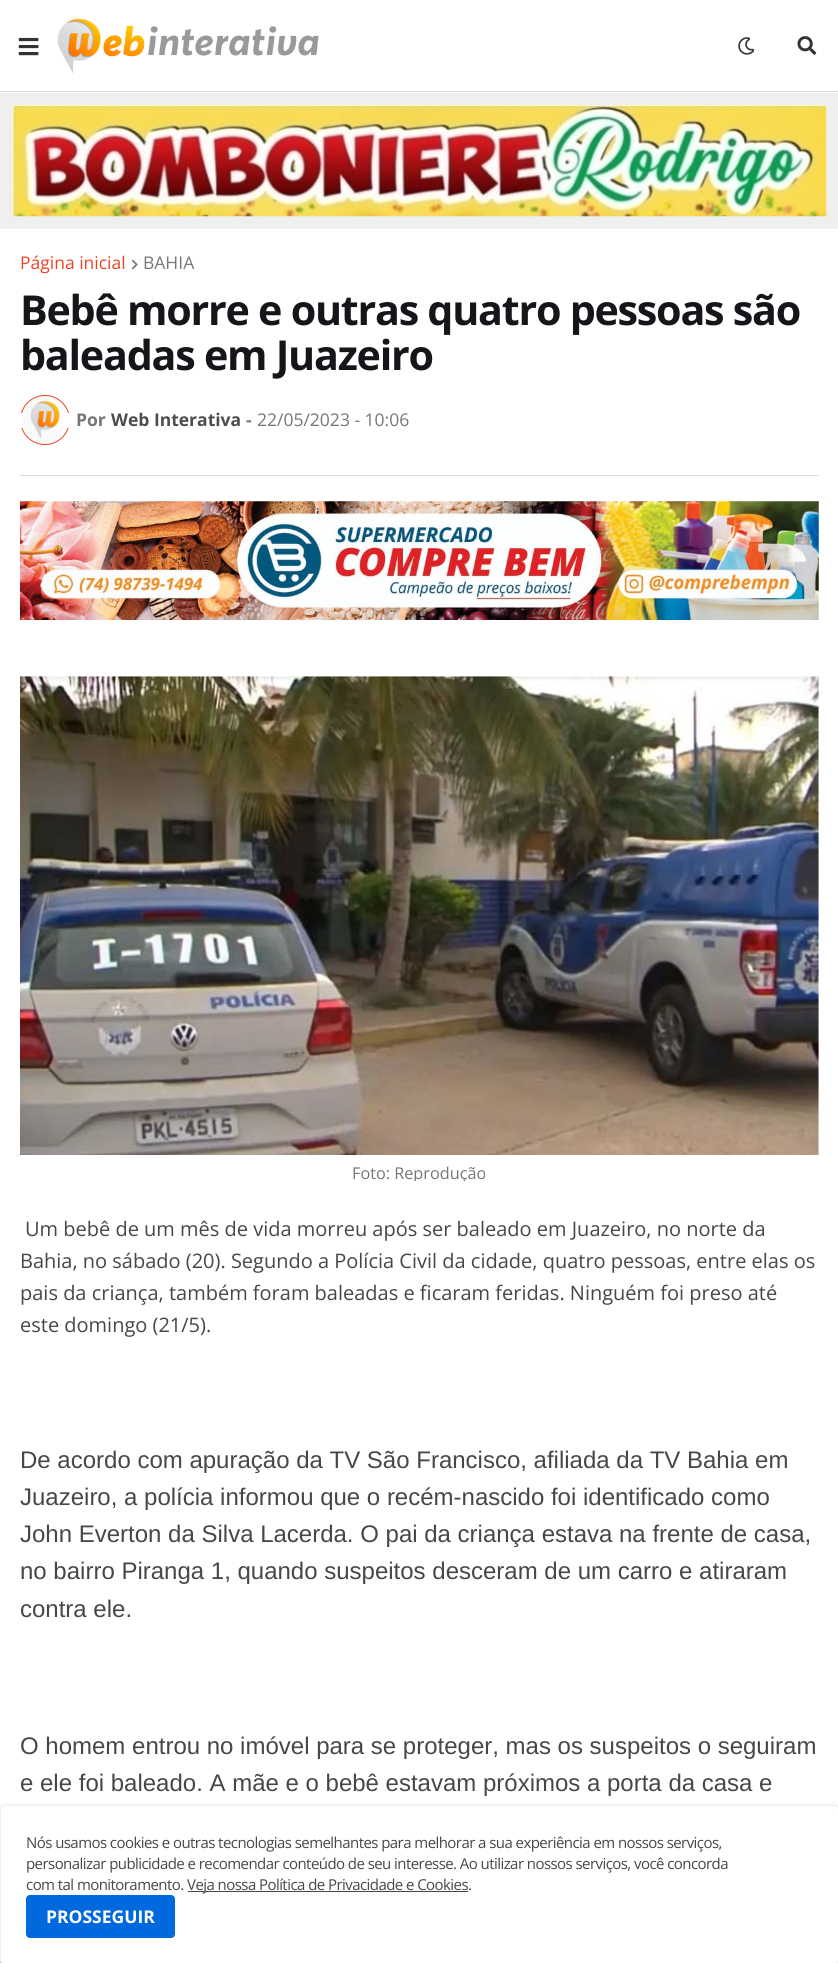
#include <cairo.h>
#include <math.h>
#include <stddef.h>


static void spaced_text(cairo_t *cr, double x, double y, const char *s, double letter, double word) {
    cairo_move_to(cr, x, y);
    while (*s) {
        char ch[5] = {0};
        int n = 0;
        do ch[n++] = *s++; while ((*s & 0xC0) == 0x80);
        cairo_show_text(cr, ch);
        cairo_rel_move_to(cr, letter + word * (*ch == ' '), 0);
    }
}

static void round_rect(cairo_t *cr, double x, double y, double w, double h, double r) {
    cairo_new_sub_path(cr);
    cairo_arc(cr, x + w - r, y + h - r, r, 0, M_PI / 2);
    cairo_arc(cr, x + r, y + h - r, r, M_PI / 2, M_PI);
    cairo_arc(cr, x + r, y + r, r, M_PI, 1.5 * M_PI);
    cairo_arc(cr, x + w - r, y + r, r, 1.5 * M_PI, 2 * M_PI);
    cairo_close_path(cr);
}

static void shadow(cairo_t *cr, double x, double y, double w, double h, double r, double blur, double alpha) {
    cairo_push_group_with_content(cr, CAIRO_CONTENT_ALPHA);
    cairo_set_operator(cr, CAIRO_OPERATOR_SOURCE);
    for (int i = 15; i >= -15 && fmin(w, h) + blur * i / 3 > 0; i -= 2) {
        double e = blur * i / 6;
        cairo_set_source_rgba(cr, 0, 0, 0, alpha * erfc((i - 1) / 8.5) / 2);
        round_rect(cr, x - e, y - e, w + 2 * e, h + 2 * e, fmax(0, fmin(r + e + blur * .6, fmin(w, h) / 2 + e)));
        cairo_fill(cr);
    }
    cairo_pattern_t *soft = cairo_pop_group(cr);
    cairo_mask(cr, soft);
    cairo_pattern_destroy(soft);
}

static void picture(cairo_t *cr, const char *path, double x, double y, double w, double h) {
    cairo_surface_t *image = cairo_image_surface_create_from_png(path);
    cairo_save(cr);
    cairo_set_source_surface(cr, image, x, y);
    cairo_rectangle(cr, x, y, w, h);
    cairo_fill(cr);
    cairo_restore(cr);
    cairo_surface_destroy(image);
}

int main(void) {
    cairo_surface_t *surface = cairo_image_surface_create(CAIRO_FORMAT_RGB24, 838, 1963);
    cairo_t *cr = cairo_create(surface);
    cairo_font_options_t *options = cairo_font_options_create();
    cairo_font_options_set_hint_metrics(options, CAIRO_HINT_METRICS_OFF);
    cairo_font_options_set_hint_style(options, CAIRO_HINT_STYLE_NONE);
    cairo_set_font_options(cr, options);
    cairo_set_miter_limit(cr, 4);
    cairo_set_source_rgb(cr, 1, 1, 1);
    cairo_paint(cr);
    cairo_set_source_rgb(cr, 0.855, 0.855, 0.855);
    cairo_rectangle(cr, 0, 91, 838, 1);
    cairo_fill(cr);
    picture(cr, "img1.png", 18, 37, 21, 19);
    picture(cr, "img2.png", 57, 18, 262, 56);
    picture(cr, "img3.png", 738, 37, 17, 18);
    picture(cr, "img4.png", 797, 36, 20, 19);
    cairo_set_source_rgb(cr, 0.937, 0.937, 0.937);
    cairo_rectangle(cr, 0, 93, 838, 136);
    cairo_fill(cr);
    picture(cr, "img5.png", 12, 105, 815, 112);
    cairo_set_source_rgb(cr, 0.867, 0.867, 0.867);
    cairo_rectangle(cr, 20, 475, 799, 1);
    cairo_fill(cr);
    cairo_select_font_face(cr, "Open Sans", CAIRO_FONT_SLANT_NORMAL, CAIRO_FONT_WEIGHT_NORMAL);
    cairo_set_font_size(cr, 17.5);
    cairo_set_source_rgb(cr, 0.937, 0.259, 0.137);
    cairo_move_to(cr, 20, 269);
    cairo_show_text(cr, "Página inicial");
    picture(cr, "img6.png", 131, 259, 7, 11);
    cairo_set_source_rgb(cr, 0.463, 0.463, 0.478);
    cairo_move_to(cr, 143, 269);
    cairo_show_text(cr, "BAHIA");
    cairo_select_font_face(cr, "Open Sans", CAIRO_FONT_SLANT_NORMAL, CAIRO_FONT_WEIGHT_BOLD);
    cairo_set_font_size(cr, 41.25);
    cairo_set_source_rgb(cr, 0.082, 0.086, 0.102);
    spaced_text(cr, 20, 325, "Bebê morre e outras quatro pessoas são", -1.25, 0);
    spaced_text(cr, 20, 370, "baleadas em Juazeiro", -1.25, 0);
    cairo_new_path(cr);
    cairo_arc(cr, 45, 420, 24.5, 0, 2 * M_PI);
    cairo_set_source_rgb(cr, 0.937, 0.259, 0.137);
    cairo_set_line_width(cr, 1);
    cairo_stroke(cr);
    cairo_set_source_rgb(cr, 1, 1, 1);
    cairo_rectangle(cr, 20, 413, 50, 15);
    cairo_fill(cr);
    picture(cr, "img7.png", 23, 398, 40, 44);
    cairo_set_font_size(cr, 17.5);
    cairo_set_source_rgb(cr, 0.463, 0.463, 0.478);
    cairo_move_to(cr, 76, 426);
    cairo_show_text(cr, "Por");
    cairo_set_source_rgb(cr, 0.302, 0.302, 0.302);
    cairo_move_to(cr, 111, 426);
    cairo_show_text(cr, "Web Interativa");
    cairo_set_source_rgb(cr, 0.463, 0.463, 0.478);
    cairo_move_to(cr, 246, 426);
    cairo_show_text(cr, "-");
    cairo_select_font_face(cr, "Open Sans", CAIRO_FONT_SLANT_NORMAL, CAIRO_FONT_WEIGHT_NORMAL);
    cairo_move_to(cr, 257, 426);
    cairo_show_text(cr, "22/05/2023 - 10:06");
    picture(cr, "img8.png", 20, 501, 799, 119);
    picture(cr, "img9.png", 20, 676, 799, 479);
    cairo_save(cr);
    cairo_rectangle(cr, 20, 676, 799, 505);
    cairo_clip(cr);
    cairo_set_font_size(cr, 16.25);
    cairo_move_to(cr, 352, 1179);
    cairo_show_text(cr, "Foto: Reprodução");
    cairo_restore(cr);
    cairo_set_font_size(cr, 20);
    cairo_set_source_rgb(cr, 0.278, 0.278, 0.29);
    cairo_move_to(cr, 25, 1236);
    cairo_show_text(cr, "Um bebê de um mês de vida morreu após ser baleado em Juazeiro, no norte da");
    cairo_move_to(cr, 20, 1268);
    cairo_show_text(cr, "Bahia, no sábado (20). Segundo a Polícia Civil da cidade, quatro pessoas, entre elas os");
    cairo_move_to(cr, 20, 1300);
    cairo_show_text(cr, "pais da criança, também foram baleadas e ficaram feridas. Ninguém foi preso até");
    cairo_move_to(cr, 20, 1332);
    cairo_show_text(cr, "este domingo (21/5).");
    cairo_select_font_face(cr, "Liberation Sans", CAIRO_FONT_SLANT_NORMAL, CAIRO_FONT_WEIGHT_NORMAL);
    cairo_set_font_size(cr, 24);
    cairo_move_to(cr, 20, 1468);
    cairo_show_text(cr, "De acordo com apuração da TV São Francisco, afiliada da TV Bahia em");
    cairo_move_to(cr, 20, 1505);
    cairo_show_text(cr, "Juazeiro, a polícia informou que o recém-nascido foi identificado como");
    cairo_move_to(cr, 20, 1542);
    cairo_show_text(cr, "John Everton da Silva Lacerda. O pai da criança estava na frente de casa,");
    cairo_move_to(cr, 20, 1579);
    cairo_show_text(cr, "no bairro Piranga 1, quando suspeitos desceram de um carro e atiraram");
    cairo_move_to(cr, 20, 1617);
    cairo_show_text(cr, "contra ele.");
    cairo_move_to(cr, 20, 1754);
    cairo_show_text(cr, "O homem entrou no imóvel para se proteger, mas os suspeitos o seguiram");
    cairo_move_to(cr, 20, 1791);
    cairo_show_text(cr, "e ele foi baleado. A mãe e o bebê estavam próximos a porta da casa e");
    cairo_set_source_rgb(cr, 0, 0, 0);
    shadow(cr, 0, 1808, 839, 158, 4, 2.5, 0.4);
    cairo_set_source_rgb(cr, 1, 1, 1);
    round_rect(cr, 0.5, 1805.5, 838, 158, 3.5);
    cairo_fill_preserve(cr);
    cairo_set_source_rgb(cr, 0.933, 0.933, 0.933);
    cairo_stroke(cr);
    cairo_select_font_face(cr, "Open Sans", CAIRO_FONT_SLANT_NORMAL, CAIRO_FONT_WEIGHT_NORMAL);
    cairo_set_font_size(cr, 15);
    cairo_set_source_rgb(cr, 0.278, 0.278, 0.29);
    spaced_text(cr, 26, 1848, "Nós usamos cookies e outras tecnologias semelhantes para melhorar a sua experiência em nossos serviços,", -0.56, 0);
    spaced_text(cr, 26, 1869, "personalizar publicidade e recomendar conteúdo de seu interesse. Ao utilizar nossos serviços, você concorda", -0.56, 0);
    spaced_text(cr, 26, 1890, "com tal monitoramento.", -0.56, 0);
    cairo_rectangle(cr, 188, 1891, 280, 1);
    cairo_fill(cr);
    spaced_text(cr, 187, 1890, "Veja nossa Política de Privacidade e Cookies.", -0.56, 0);
    cairo_set_source_rgb(cr, 0, 0.412, 0.871);
    round_rect(cr, 26, 1895, 149, 43, 4);
    cairo_fill(cr);
    cairo_select_font_face(cr, "Open Sans", CAIRO_FONT_SLANT_NORMAL, CAIRO_FONT_WEIGHT_BOLD);
    cairo_set_font_size(cr, 17.5);
    cairo_set_source_rgb(cr, 1, 1, 1);
    cairo_move_to(cr, 46, 1923);
    cairo_show_text(cr, "PROSSEGUIR");
    cairo_surface_write_to_png(surface, "page.png");
    cairo_font_options_destroy(options);
    cairo_destroy(cr);
    cairo_surface_destroy(surface);
    return 0;
}
